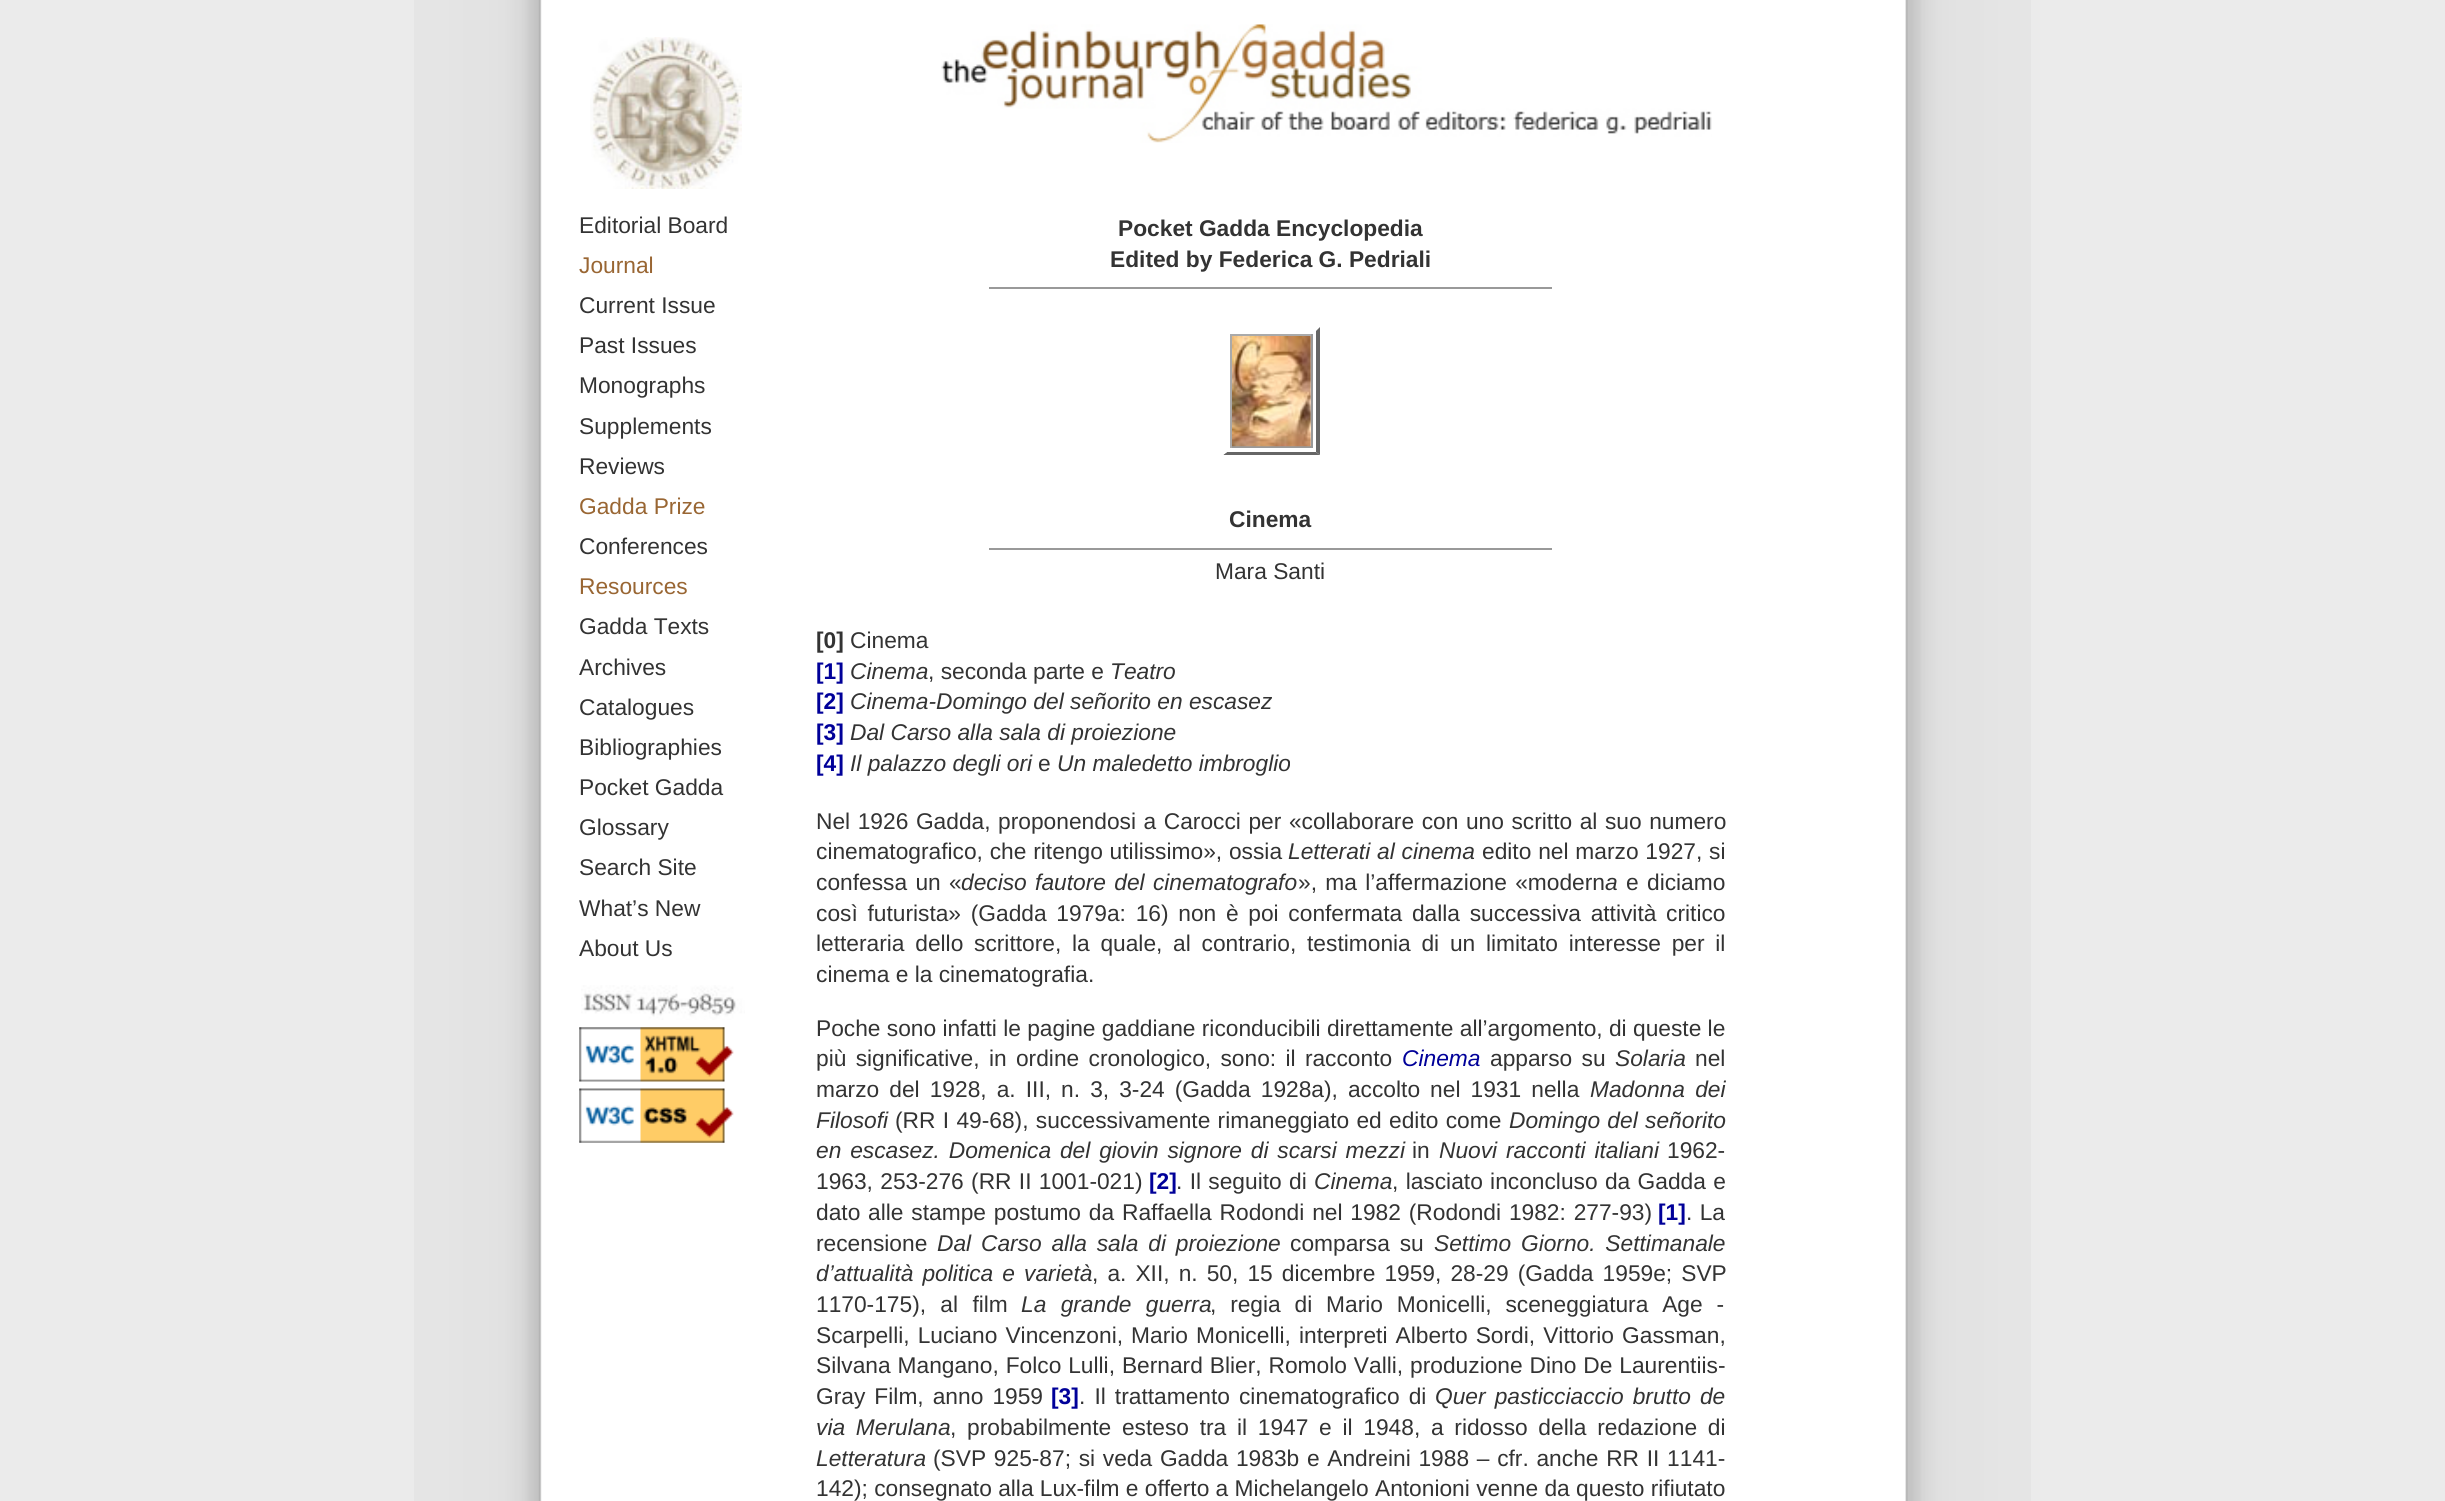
#include <cairo.h>
#include <math.h>
#include <stddef.h>


static void spaced_text(cairo_t *cr, double x, double y, const char *s, double letter, double word) {
    cairo_move_to(cr, x, y);
    while (*s) {
        char ch[5] = {0};
        int n = 0;
        do ch[n++] = *s++; while ((*s & 0xC0) == 0x80);
        cairo_show_text(cr, ch);
        cairo_rel_move_to(cr, letter + word * (*ch == ' '), 0);
    }
}

static void picture(cairo_t *cr, const char *path, double x, double y, double w, double h) {
    cairo_surface_t *image = cairo_image_surface_create_from_png(path);
    cairo_save(cr);
    cairo_set_source_surface(cr, image, x, y);
    cairo_rectangle(cr, x, y, w, h);
    cairo_fill(cr);
    cairo_restore(cr);
    cairo_surface_destroy(image);
}

int main(void) {
    cairo_surface_t *surface = cairo_image_surface_create(CAIRO_FORMAT_RGB24, 2445, 1501);
    cairo_t *cr = cairo_create(surface);
    cairo_font_options_t *options = cairo_font_options_create();
    cairo_font_options_set_hint_metrics(options, CAIRO_HINT_METRICS_OFF);
    cairo_font_options_set_hint_style(options, CAIRO_HINT_STYLE_NONE);
    cairo_set_font_options(cr, options);
    cairo_set_miter_limit(cr, 4);
    cairo_set_source_rgb(cr, 0.918, 0.918, 0.918);
    cairo_paint(cr);
    picture(cr, "img1.png", 414, 0, 1617, 1501);
    picture(cr, "img2.png", 941, 24, 771, 119);
    picture(cr, "img3.png", 590, 37, 152, 152);
    cairo_select_font_face(cr, "Liberation Sans", CAIRO_FONT_SLANT_NORMAL, CAIRO_FONT_WEIGHT_NORMAL);
    cairo_set_font_size(cr, 22.75);
    cairo_set_source_rgb(cr, 0.2, 0.2, 0.2);
    cairo_move_to(cr, 579, 233);
    cairo_show_text(cr, "Editorial Board");
    cairo_set_source_rgb(cr, 0.6, 0.4, 0.2);
    cairo_move_to(cr, 579, 273);
    cairo_show_text(cr, "Journal");
    cairo_set_source_rgb(cr, 0.2, 0.2, 0.2);
    cairo_move_to(cr, 579, 313);
    cairo_show_text(cr, "Current Issue");
    cairo_move_to(cr, 579, 353);
    cairo_show_text(cr, "Past Issues");
    cairo_move_to(cr, 579, 393);
    cairo_show_text(cr, "Monographs");
    cairo_move_to(cr, 579, 434);
    cairo_show_text(cr, "Supplements");
    cairo_move_to(cr, 579, 474);
    cairo_show_text(cr, "Reviews");
    cairo_set_source_rgb(cr, 0.6, 0.4, 0.2);
    cairo_move_to(cr, 579, 514);
    cairo_show_text(cr, "Gadda Prize");
    cairo_set_source_rgb(cr, 0.2, 0.2, 0.2);
    cairo_move_to(cr, 579, 554);
    cairo_show_text(cr, "Conferences");
    cairo_set_source_rgb(cr, 0.6, 0.4, 0.2);
    cairo_move_to(cr, 579, 594);
    cairo_show_text(cr, "Resources");
    cairo_set_source_rgb(cr, 0.2, 0.2, 0.2);
    cairo_move_to(cr, 579, 634);
    cairo_show_text(cr, "Gadda Texts");
    cairo_move_to(cr, 579, 675);
    cairo_show_text(cr, "Archives");
    cairo_move_to(cr, 579, 715);
    cairo_show_text(cr, "Catalogues");
    cairo_move_to(cr, 579, 755);
    cairo_show_text(cr, "Bibliographies");
    cairo_move_to(cr, 579, 795);
    cairo_show_text(cr, "Pocket Gadda");
    cairo_move_to(cr, 579, 835);
    cairo_show_text(cr, "Glossary");
    cairo_move_to(cr, 579, 875);
    cairo_show_text(cr, "Search Site");
    cairo_move_to(cr, 579, 916);
    cairo_show_text(cr, "What’s New");
    cairo_move_to(cr, 579, 956);
    cairo_show_text(cr, "About Us");
    picture(cr, "img4.png", 581, 985, 164, 35);
    picture(cr, "img5.png", 579, 1027, 155, 55);
    picture(cr, "img6.png", 579, 1088, 155, 55);
    cairo_set_source_rgb(cr, 0.6, 0.6, 0.6);
    cairo_rectangle(cr, 989, 287, 563, 2);
    cairo_fill(cr);
    cairo_select_font_face(cr, "Liberation Sans", CAIRO_FONT_SLANT_NORMAL, CAIRO_FONT_WEIGHT_BOLD);
    cairo_set_source_rgb(cr, 0.2, 0.2, 0.2);
    cairo_move_to(cr, 1118, 236);
    cairo_show_text(cr, "Pocket Gadda Encyclopedia");
    cairo_move_to(cr, 1110, 267);
    cairo_show_text(cr, "Edited by Federica G. Pedriali");
    cairo_set_source_rgb(cr, 0.4, 0.4, 0.4);
    cairo_new_path(cr);
    cairo_move_to(cr, 1320, 327);
    cairo_line_to(cr, 1320, 455);
    cairo_line_to(cr, 1316, 452);
    cairo_line_to(cr, 1316, 331);
    cairo_close_path(cr);
    cairo_fill(cr);
    cairo_new_path(cr);
    cairo_move_to(cr, 1320, 455);
    cairo_line_to(cr, 1223, 455);
    cairo_line_to(cr, 1227, 452);
    cairo_line_to(cr, 1316, 452);
    cairo_close_path(cr);
    cairo_fill(cr);
    cairo_set_source_rgb(cr, 1, 1, 1);
    cairo_new_path(cr);
    cairo_move_to(cr, 1223, 455);
    cairo_line_to(cr, 1223, 327);
    cairo_line_to(cr, 1227, 331);
    cairo_line_to(cr, 1227, 452);
    cairo_close_path(cr);
    cairo_fill(cr);
    cairo_set_source_rgb(cr, 0.667, 0.667, 0.667);
    cairo_rectangle(cr, 1230, 334, 83, 2);
    cairo_fill(cr);
    cairo_set_source_rgb(cr, 0.6, 0.6, 0.6);
    cairo_rectangle(cr, 1311, 334, 2, 114);
    cairo_fill(cr);
    cairo_rectangle(cr, 1230, 446, 83, 2);
    cairo_fill(cr);
    cairo_set_source_rgb(cr, 0.667, 0.667, 0.667);
    cairo_rectangle(cr, 1230, 334, 2, 114);
    cairo_fill(cr);
    picture(cr, "img7.png", 1232, 336, 79, 111);
    cairo_set_source_rgb(cr, 0.6, 0.6, 0.6);
    cairo_rectangle(cr, 989, 548, 563, 2);
    cairo_fill(cr);
    cairo_set_source_rgb(cr, 0.2, 0.2, 0.2);
    cairo_move_to(cr, 1229, 527);
    cairo_show_text(cr, "Cinema");
    cairo_select_font_face(cr, "Liberation Sans", CAIRO_FONT_SLANT_NORMAL, CAIRO_FONT_WEIGHT_NORMAL);
    cairo_move_to(cr, 1215, 579);
    cairo_show_text(cr, "Mara Santi");
    cairo_select_font_face(cr, "Liberation Sans", CAIRO_FONT_SLANT_NORMAL, CAIRO_FONT_WEIGHT_BOLD);
    cairo_move_to(cr, 816, 648);
    cairo_show_text(cr, "[0]");
    cairo_select_font_face(cr, "Liberation Sans", CAIRO_FONT_SLANT_NORMAL, CAIRO_FONT_WEIGHT_NORMAL);
    cairo_move_to(cr, 850, 648);
    cairo_show_text(cr, "Cinema");
    cairo_select_font_face(cr, "Liberation Sans", CAIRO_FONT_SLANT_NORMAL, CAIRO_FONT_WEIGHT_BOLD);
    cairo_set_source_rgb(cr, 0, 0, 0.6);
    cairo_move_to(cr, 816, 679);
    cairo_show_text(cr, "[1]");
    cairo_select_font_face(cr, "Liberation Sans", CAIRO_FONT_SLANT_ITALIC, CAIRO_FONT_WEIGHT_NORMAL);
    cairo_set_source_rgb(cr, 0.2, 0.2, 0.2);
    cairo_move_to(cr, 850, 679);
    cairo_show_text(cr, "Cinema");
    cairo_select_font_face(cr, "Liberation Sans", CAIRO_FONT_SLANT_NORMAL, CAIRO_FONT_WEIGHT_NORMAL);
    cairo_move_to(cr, 928, 679);
    cairo_show_text(cr, ", seconda parte e");
    cairo_select_font_face(cr, "Liberation Sans", CAIRO_FONT_SLANT_ITALIC, CAIRO_FONT_WEIGHT_NORMAL);
    cairo_move_to(cr, 1110, 679);
    cairo_show_text(cr, "Teatro");
    cairo_select_font_face(cr, "Liberation Sans", CAIRO_FONT_SLANT_NORMAL, CAIRO_FONT_WEIGHT_BOLD);
    cairo_set_source_rgb(cr, 0, 0, 0.6);
    cairo_move_to(cr, 816, 709);
    cairo_show_text(cr, "[2]");
    cairo_select_font_face(cr, "Liberation Sans", CAIRO_FONT_SLANT_ITALIC, CAIRO_FONT_WEIGHT_NORMAL);
    cairo_set_source_rgb(cr, 0.2, 0.2, 0.2);
    cairo_move_to(cr, 850, 709);
    cairo_show_text(cr, "Cinema-Domingo del señorito en escasez");
    cairo_select_font_face(cr, "Liberation Sans", CAIRO_FONT_SLANT_NORMAL, CAIRO_FONT_WEIGHT_BOLD);
    cairo_set_source_rgb(cr, 0, 0, 0.6);
    cairo_move_to(cr, 816, 740);
    cairo_show_text(cr, "[3]");
    cairo_select_font_face(cr, "Liberation Sans", CAIRO_FONT_SLANT_ITALIC, CAIRO_FONT_WEIGHT_NORMAL);
    cairo_set_source_rgb(cr, 0.2, 0.2, 0.2);
    cairo_move_to(cr, 850, 740);
    cairo_show_text(cr, "Dal Carso alla sala di proiezione");
    cairo_select_font_face(cr, "Liberation Sans", CAIRO_FONT_SLANT_NORMAL, CAIRO_FONT_WEIGHT_BOLD);
    cairo_set_source_rgb(cr, 0, 0, 0.6);
    cairo_move_to(cr, 816, 771);
    cairo_show_text(cr, "[4]");
    cairo_select_font_face(cr, "Liberation Sans", CAIRO_FONT_SLANT_ITALIC, CAIRO_FONT_WEIGHT_NORMAL);
    cairo_set_source_rgb(cr, 0.2, 0.2, 0.2);
    cairo_move_to(cr, 850, 771);
    cairo_show_text(cr, "Il palazzo degli ori");
    cairo_select_font_face(cr, "Liberation Sans", CAIRO_FONT_SLANT_NORMAL, CAIRO_FONT_WEIGHT_NORMAL);
    cairo_move_to(cr, 1038, 771);
    cairo_show_text(cr, "e");
    cairo_select_font_face(cr, "Liberation Sans", CAIRO_FONT_SLANT_ITALIC, CAIRO_FONT_WEIGHT_NORMAL);
    cairo_move_to(cr, 1057, 771);
    cairo_show_text(cr, "Un maledetto imbroglio");
    cairo_select_font_face(cr, "Liberation Sans", CAIRO_FONT_SLANT_NORMAL, CAIRO_FONT_WEIGHT_NORMAL);
    spaced_text(cr, 816, 829, "Nel 1926 Gadda, proponendosi a Carocci per «collaborare con uno scritto al suo numero", 0, 1.25);
    spaced_text(cr, 816, 859, "cinematografico, che ritengo utilissimo», ossia", 0, 0.5);
    cairo_select_font_face(cr, "Liberation Sans", CAIRO_FONT_SLANT_ITALIC, CAIRO_FONT_WEIGHT_NORMAL);
    spaced_text(cr, 1288, 859, "Letterati al cinema", 0, 0.5);
    cairo_select_font_face(cr, "Liberation Sans", CAIRO_FONT_SLANT_NORMAL, CAIRO_FONT_WEIGHT_NORMAL);
    spaced_text(cr, 1482, 859, "edito nel marzo 1927, si", 0, 0.5);
    spaced_text(cr, 816, 890, "confessa un «", 0, 2);
    cairo_select_font_face(cr, "Liberation Sans", CAIRO_FONT_SLANT_ITALIC, CAIRO_FONT_WEIGHT_NORMAL);
    spaced_text(cr, 961, 890, "deciso fautore del cinematografo", 0, 2);
    cairo_select_font_face(cr, "Liberation Sans", CAIRO_FONT_SLANT_NORMAL, CAIRO_FONT_WEIGHT_NORMAL);
    spaced_text(cr, 1298, 890, "», ma l’affermazione «modern", 0, 2);
    cairo_select_font_face(cr, "Liberation Sans", CAIRO_FONT_SLANT_ITALIC, CAIRO_FONT_WEIGHT_NORMAL);
    cairo_move_to(cr, 1605, 890);
    cairo_show_text(cr, "a");
    cairo_select_font_face(cr, "Liberation Sans", CAIRO_FONT_SLANT_NORMAL, CAIRO_FONT_WEIGHT_NORMAL);
    spaced_text(cr, 1626, 890, "e diciamo", 0, 2);
    spaced_text(cr, 816, 921, "così futurista» (Gadda 1979a: 16) non è poi confermata dalla successiva attività critico", 0, 3.4);
    spaced_text(cr, 816, 951, "letteraria dello scrittore, la quale, al contrario, testimonia di un limitato interesse per il", 0, 4.4);
    cairo_move_to(cr, 816, 982);
    cairo_show_text(cr, "cinema e la cinematografia.");
    cairo_move_to(cr, 816, 1036);
    cairo_show_text(cr, "Poche sono infatti le pagine gaddiane riconducibili direttamente all’argomento, di queste le");
    spaced_text(cr, 816, 1066, "più significative, in ordine cronologico, sono: il racconto", 0, 3);
    cairo_select_font_face(cr, "Liberation Sans", CAIRO_FONT_SLANT_ITALIC, CAIRO_FONT_WEIGHT_NORMAL);
    cairo_set_source_rgb(cr, 0, 0, 0.6);
    cairo_move_to(cr, 1402, 1066);
    cairo_show_text(cr, "Cinema");
    cairo_select_font_face(cr, "Liberation Sans", CAIRO_FONT_SLANT_NORMAL, CAIRO_FONT_WEIGHT_NORMAL);
    cairo_set_source_rgb(cr, 0.2, 0.2, 0.2);
    spaced_text(cr, 1490, 1066, "apparso su", 0, 3);
    cairo_select_font_face(cr, "Liberation Sans", CAIRO_FONT_SLANT_ITALIC, CAIRO_FONT_WEIGHT_NORMAL);
    cairo_move_to(cr, 1615, 1066);
    cairo_show_text(cr, "Solaria");
    cairo_select_font_face(cr, "Liberation Sans", CAIRO_FONT_SLANT_NORMAL, CAIRO_FONT_WEIGHT_NORMAL);
    cairo_move_to(cr, 1695, 1066);
    cairo_show_text(cr, "nel");
    spaced_text(cr, 816, 1097, "marzo del 1928, a. III, n. 3, 3-24 (Gadda 1928a), accolto nel 1931 nella", 0, 3.75);
    cairo_select_font_face(cr, "Liberation Sans", CAIRO_FONT_SLANT_ITALIC, CAIRO_FONT_WEIGHT_NORMAL);
    spaced_text(cr, 1590, 1097, "Madonna dei", 0, 4);
    cairo_move_to(cr, 816, 1128);
    cairo_show_text(cr, "Filosofi");
    cairo_select_font_face(cr, "Liberation Sans", CAIRO_FONT_SLANT_NORMAL, CAIRO_FONT_WEIGHT_NORMAL);
    spaced_text(cr, 895, 1128, "(RR I 49-68), successivamente rimaneggiato ed edito come", 0, 1);
    cairo_select_font_face(cr, "Liberation Sans", CAIRO_FONT_SLANT_ITALIC, CAIRO_FONT_WEIGHT_NORMAL);
    spaced_text(cr, 1509, 1128, "Domingo del señorito", 0, 1);
    spaced_text(cr, 816, 1158, "en escasez. Domenica del giovin signore di scarsi mezzi", 0, 2.5);
    cairo_select_font_face(cr, "Liberation Sans", CAIRO_FONT_SLANT_NORMAL, CAIRO_FONT_WEIGHT_NORMAL);
    cairo_move_to(cr, 1412, 1158);
    cairo_show_text(cr, "in");
    cairo_select_font_face(cr, "Liberation Sans", CAIRO_FONT_SLANT_ITALIC, CAIRO_FONT_WEIGHT_NORMAL);
    spaced_text(cr, 1439, 1158, "Nuovi racconti italiani", 0, 2.5);
    cairo_select_font_face(cr, "Liberation Sans", CAIRO_FONT_SLANT_NORMAL, CAIRO_FONT_WEIGHT_NORMAL);
    cairo_move_to(cr, 1667, 1158);
    cairo_show_text(cr, "1962-");
    spaced_text(cr, 816, 1189, "1963, 253-276 (RR II 1001-021)", 0, 1);
    cairo_select_font_face(cr, "Liberation Sans", CAIRO_FONT_SLANT_NORMAL, CAIRO_FONT_WEIGHT_BOLD);
    cairo_set_source_rgb(cr, 0, 0, 0.6);
    cairo_move_to(cr, 1149, 1189);
    cairo_show_text(cr, "[2]");
    cairo_select_font_face(cr, "Liberation Sans", CAIRO_FONT_SLANT_NORMAL, CAIRO_FONT_WEIGHT_NORMAL);
    cairo_set_source_rgb(cr, 0.2, 0.2, 0.2);
    spaced_text(cr, 1176, 1189, ". Il seguito di", 0, 1);
    cairo_select_font_face(cr, "Liberation Sans", CAIRO_FONT_SLANT_ITALIC, CAIRO_FONT_WEIGHT_NORMAL);
    cairo_move_to(cr, 1314, 1189);
    cairo_show_text(cr, "Cinema");
    cairo_select_font_face(cr, "Liberation Sans", CAIRO_FONT_SLANT_NORMAL, CAIRO_FONT_WEIGHT_NORMAL);
    spaced_text(cr, 1392, 1189, ", lasciato inconcluso da Gadda e", 0, 1);
    spaced_text(cr, 816, 1220, "dato alle stampe postumo da Raffaella Rodondi nel 1982 (Rodondi 1982: 277-93)", 0, 1.5);
    cairo_select_font_face(cr, "Liberation Sans", CAIRO_FONT_SLANT_NORMAL, CAIRO_FONT_WEIGHT_BOLD);
    cairo_set_source_rgb(cr, 0, 0, 0.6);
    cairo_move_to(cr, 1658, 1220);
    cairo_show_text(cr, "[1]");
    cairo_select_font_face(cr, "Liberation Sans", CAIRO_FONT_SLANT_NORMAL, CAIRO_FONT_WEIGHT_NORMAL);
    cairo_set_source_rgb(cr, 0.2, 0.2, 0.2);
    spaced_text(cr, 1686, 1220, ". La", 0, 1);
    cairo_move_to(cr, 816, 1251);
    cairo_show_text(cr, "recensione");
    cairo_select_font_face(cr, "Liberation Sans", CAIRO_FONT_SLANT_ITALIC, CAIRO_FONT_WEIGHT_NORMAL);
    spaced_text(cr, 937, 1251, "Dal Carso alla sala di proiezione", 0, 3.5);
    cairo_select_font_face(cr, "Liberation Sans", CAIRO_FONT_SLANT_NORMAL, CAIRO_FONT_WEIGHT_NORMAL);
    spaced_text(cr, 1290, 1251, "comparsa su", 0, 3.5);
    cairo_select_font_face(cr, "Liberation Sans", CAIRO_FONT_SLANT_ITALIC, CAIRO_FONT_WEIGHT_NORMAL);
    spaced_text(cr, 1434, 1251, "Settimo Giorno. Settimanale", 0, 3.5);
    spaced_text(cr, 816, 1281, "d’attualità politica e varietà", 0, 2.75);
    cairo_select_font_face(cr, "Liberation Sans", CAIRO_FONT_SLANT_NORMAL, CAIRO_FONT_WEIGHT_NORMAL);
    spaced_text(cr, 1092, 1281, ", a. XII, n. 50, 15 dicembre 1959, 28-29 (Gadda 1959e; SVP", 0, 2.75);
    spaced_text(cr, 816, 1312, "1170-175), al film", 0, 8);
    cairo_select_font_face(cr, "Liberation Sans", CAIRO_FONT_SLANT_ITALIC, CAIRO_FONT_WEIGHT_NORMAL);
    spaced_text(cr, 1021, 1312, "La grande guerra", 0, 8);
    cairo_select_font_face(cr, "Liberation Sans", CAIRO_FONT_SLANT_NORMAL, CAIRO_FONT_WEIGHT_NORMAL);
    spaced_text(cr, 1210, 1312, ", regia di Mario Monicelli, sceneggiatura Age -", 0, 7.5);
    spaced_text(cr, 816, 1343, "Scarpelli, Luciano Vincenzoni, Mario Monicelli, interpreti Alberto Sordi, Vittorio Gassman,", 0, 1.75);
    spaced_text(cr, 816, 1373, "Silvana Mangano, Folco Lulli, Bernard Blier, Romolo Valli, produzione Dino De Laurentiis-", 0, 0.6);
    spaced_text(cr, 816, 1404, "Gray Film, anno 1959", 0, 2.75);
    cairo_select_font_face(cr, "Liberation Sans", CAIRO_FONT_SLANT_NORMAL, CAIRO_FONT_WEIGHT_BOLD);
    cairo_set_source_rgb(cr, 0, 0, 0.6);
    cairo_move_to(cr, 1051, 1404);
    cairo_show_text(cr, "[3]");
    cairo_select_font_face(cr, "Liberation Sans", CAIRO_FONT_SLANT_NORMAL, CAIRO_FONT_WEIGHT_NORMAL);
    cairo_set_source_rgb(cr, 0.2, 0.2, 0.2);
    spaced_text(cr, 1079, 1404, ". Il trattamento cinematografico di", 0, 2.75);
    cairo_select_font_face(cr, "Liberation Sans", CAIRO_FONT_SLANT_ITALIC, CAIRO_FONT_WEIGHT_NORMAL);
    spaced_text(cr, 1435, 1404, "Quer pasticciaccio brutto de", 0, 2.75);
    spaced_text(cr, 816, 1435, "via Merulana", 0, 4.4);
    cairo_select_font_face(cr, "Liberation Sans", CAIRO_FONT_SLANT_NORMAL, CAIRO_FONT_WEIGHT_NORMAL);
    spaced_text(cr, 950, 1435, ", probabilmente esteso tra il 1947 e il 1948, a ridosso della redazione di", 0, 4.4);
    cairo_select_font_face(cr, "Liberation Sans", CAIRO_FONT_SLANT_ITALIC, CAIRO_FONT_WEIGHT_NORMAL);
    cairo_move_to(cr, 816, 1466);
    cairo_show_text(cr, "Letteratura");
    cairo_select_font_face(cr, "Liberation Sans", CAIRO_FONT_SLANT_NORMAL, CAIRO_FONT_WEIGHT_NORMAL);
    spaced_text(cr, 933, 1466, "(SVP 925-87; si veda Gadda 1983b e Andreini 1988 – cfr. anche RR II 1141-", 0, 1.4);
    cairo_move_to(cr, 816, 1496);
    cairo_show_text(cr, "142); consegnato alla Lux-film e offerto a Michelangelo Antonioni venne da questo rifiutato");
    cairo_surface_write_to_png(surface, "page.png");
    cairo_font_options_destroy(options);
    cairo_destroy(cr);
    cairo_surface_destroy(surface);
    return 0;
}
